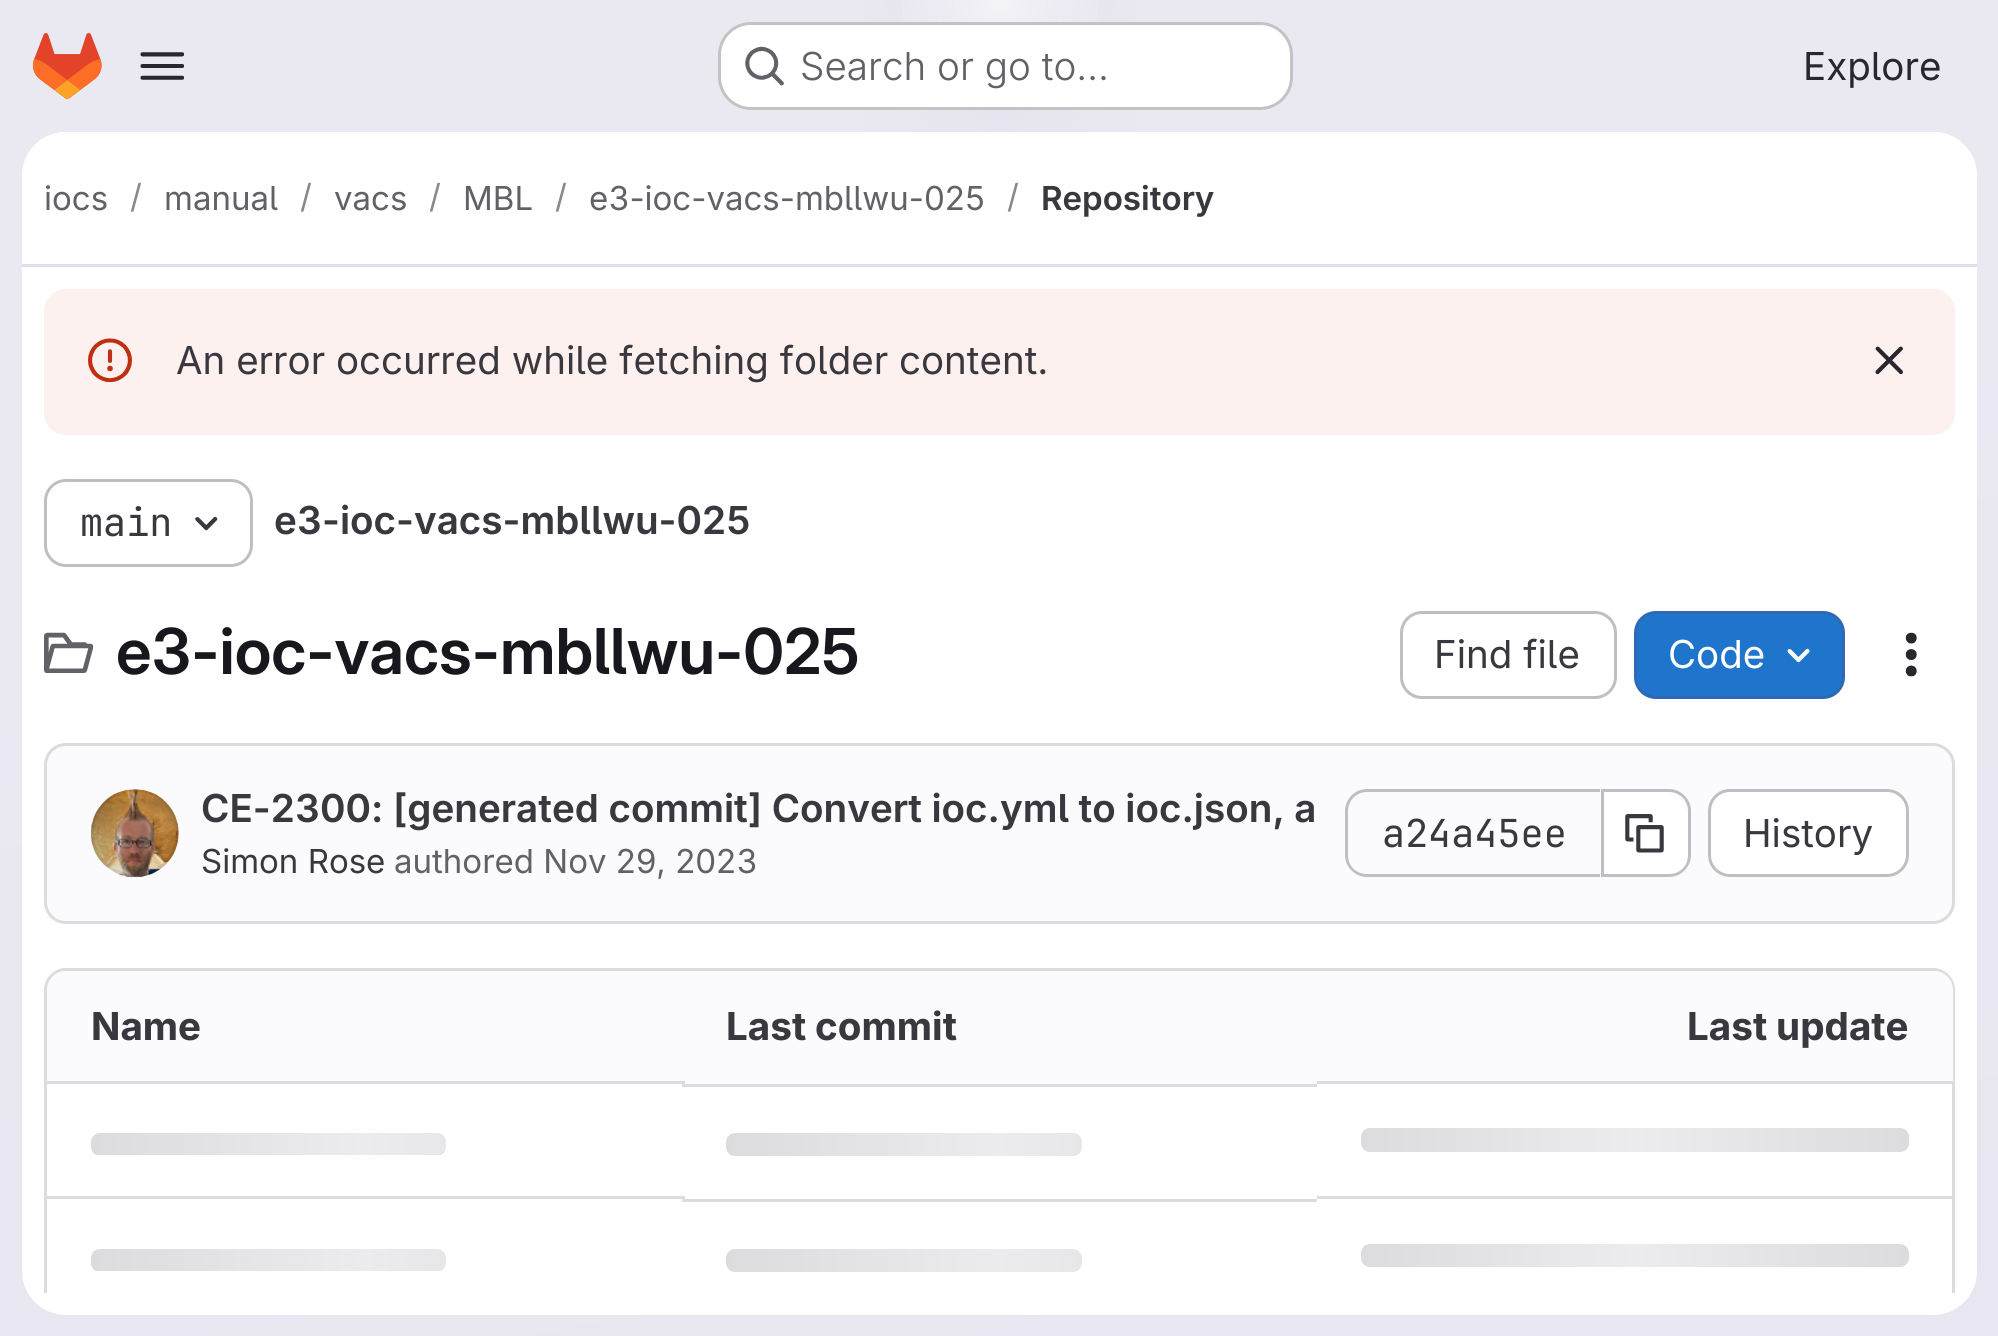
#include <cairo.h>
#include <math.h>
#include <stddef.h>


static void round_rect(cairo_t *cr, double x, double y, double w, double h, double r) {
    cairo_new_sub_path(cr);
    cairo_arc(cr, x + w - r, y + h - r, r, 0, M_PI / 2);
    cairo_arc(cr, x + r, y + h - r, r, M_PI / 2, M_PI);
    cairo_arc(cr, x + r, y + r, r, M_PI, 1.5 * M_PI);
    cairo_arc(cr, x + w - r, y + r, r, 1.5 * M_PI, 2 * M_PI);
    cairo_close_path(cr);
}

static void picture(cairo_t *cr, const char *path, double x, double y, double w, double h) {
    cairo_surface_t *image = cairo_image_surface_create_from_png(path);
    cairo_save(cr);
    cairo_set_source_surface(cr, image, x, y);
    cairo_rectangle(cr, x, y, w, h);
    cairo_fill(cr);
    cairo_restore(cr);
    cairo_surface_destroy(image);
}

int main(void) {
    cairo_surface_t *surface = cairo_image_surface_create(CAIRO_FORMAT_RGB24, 1998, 1336);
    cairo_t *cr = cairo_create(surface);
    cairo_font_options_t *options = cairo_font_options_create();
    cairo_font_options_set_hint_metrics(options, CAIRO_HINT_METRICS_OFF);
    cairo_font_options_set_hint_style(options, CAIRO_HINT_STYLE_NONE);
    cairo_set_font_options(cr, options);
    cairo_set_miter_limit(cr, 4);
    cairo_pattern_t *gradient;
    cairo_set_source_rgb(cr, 1, 1, 1);
    cairo_paint(cr);
    gradient = cairo_pattern_create_linear(1144, 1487, 855, -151);
    cairo_pattern_add_color_stop_rgba(gradient, 0, 0.91, 0.902, 0.941, 1);
    cairo_pattern_add_color_stop_rgba(gradient, 0.7, 0.918, 0.914, 0.949, 1);
    cairo_set_source(cr, gradient);
    cairo_pattern_destroy(gradient);
    cairo_rectangle(cr, 0, 0, 1998, 1336);
    cairo_fill(cr);
    gradient = cairo_pattern_create_radial(0, 0, 0, 0, 0, 1);
    cairo_pattern_set_matrix(gradient, &(cairo_matrix_t){1.0 / 1000, 0, 0, 1.0 / 1337, -1.0 * 1000 / 1000, -1.0 * 0 / 1337});
    cairo_pattern_add_color_stop_rgba(gradient, 0, 0.894, 0.886, 0.929, 1);
    cairo_pattern_add_color_stop_rgba(gradient, 0.19, 0.894, 0.886, 0.929, 0);
    cairo_set_source(cr, gradient);
    cairo_pattern_destroy(gradient);
    cairo_rectangle(cr, 863, 0, 274, 132);
    cairo_fill(cr);
    gradient = cairo_pattern_create_radial(0, 0, 0, 0, 0, 1);
    cairo_pattern_set_matrix(gradient, &(cairo_matrix_t){1.0 / 1000, 0, 0, 1.0 / 1337, -1.0 * 1000 / 1000, -1.0 * 0 / 1337});
    cairo_pattern_add_color_stop_rgba(gradient, 0, 0.894, 0.886, 0.925, 1);
    cairo_pattern_add_color_stop_rgba(gradient, 0.14, 0.894, 0.886, 0.925, 0);
    cairo_set_source(cr, gradient);
    cairo_pattern_destroy(gradient);
    cairo_rectangle(cr, 942, 0, 116, 83);
    cairo_fill(cr);
    gradient = cairo_pattern_create_radial(1000, 0, 0, 1000, 0, 1669);
    cairo_pattern_add_color_stop_rgba(gradient, 0, 1, 1, 1, 0.6);
    cairo_pattern_add_color_stop_rgba(gradient, 0.07, 1, 1, 1, 0);
    cairo_set_source(cr, gradient);
    cairo_pattern_destroy(gradient);
    cairo_rectangle(cr, 902, 0, 196, 22);
    cairo_fill(cr);
    picture(cr, "img1.png", 33, 33, 69, 66);
    picture(cr, "img2.png", 140, 52, 45, 28);
    cairo_set_source_rgb(cr, 1, 1, 1);
    round_rect(cr, 718, 22, 575, 88, 33);
    cairo_fill(cr);
    round_rect(cr, 719.5, 23.5, 572, 85, 31.5);
    cairo_set_source_rgba(cr, 0.02, 0.02, 0.024, 0.24);
    cairo_set_line_width(cr, 3);
    cairo_stroke(cr);
    picture(cr, "img3.png", 745, 46, 39, 40);
    cairo_select_font_face(cr, "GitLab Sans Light", CAIRO_FONT_SLANT_NORMAL, CAIRO_FONT_WEIGHT_NORMAL);
    cairo_set_font_size(cr, 38.5);
    cairo_set_source_rgb(cr, 0.384, 0.38, 0.408);
    cairo_move_to(cr, 800, 80);
    cairo_show_text(cr, "Search or go to…");
    cairo_select_font_face(cr, "GitLab Sans", CAIRO_FONT_SLANT_NORMAL, CAIRO_FONT_WEIGHT_NORMAL);
    cairo_set_source_rgb(cr, 0.157, 0.153, 0.176);
    cairo_move_to(cr, 1803, 80);
    cairo_show_text(cr, "Explore");
    cairo_set_source_rgb(cr, 1, 1, 1);
    round_rect(cr, 22, 132, 1955, 1183, 44);
    cairo_fill(cr);
    cairo_new_path(cr);
    cairo_move_to(cr, 66, 132);
    cairo_line_to(cr, 1933, 132);
    cairo_curve_to(cr, 1957.5, 132, 1977, 151.5, 1977, 176);
    cairo_line_to(cr, 1977, 267);
    cairo_line_to(cr, 22, 267);
    cairo_line_to(cr, 22, 176);
    cairo_curve_to(cr, 22, 151.5, 41.5, 132, 66, 132);
    cairo_close_path(cr);
    cairo_fill(cr);
    cairo_set_source_rgb(cr, 0.882, 0.875, 0.925);
    cairo_rectangle(cr, 22, 264, 1955, 3);
    cairo_fill(cr);
    cairo_set_font_size(cr, 33);
    cairo_set_source_rgb(cr, 0.384, 0.38, 0.408);
    cairo_move_to(cr, 44, 210);
    cairo_show_text(cr, "iocs");
    cairo_set_source_rgb(cr, 0.537, 0.533, 0.553);
    cairo_move_to(cr, 130, 208);
    cairo_show_text(cr, "/");
    cairo_set_source_rgb(cr, 0.384, 0.38, 0.408);
    cairo_move_to(cr, 164, 210);
    cairo_show_text(cr, "manual");
    cairo_set_source_rgb(cr, 0.537, 0.533, 0.553);
    cairo_move_to(cr, 300, 208);
    cairo_show_text(cr, "/");
    cairo_set_source_rgb(cr, 0.384, 0.38, 0.408);
    cairo_move_to(cr, 334, 210);
    cairo_show_text(cr, "vacs");
    cairo_set_source_rgb(cr, 0.537, 0.533, 0.553);
    cairo_move_to(cr, 429, 208);
    cairo_show_text(cr, "/");
    cairo_set_source_rgb(cr, 0.384, 0.38, 0.408);
    cairo_move_to(cr, 463, 210);
    cairo_show_text(cr, "MBL");
    cairo_set_source_rgb(cr, 0.537, 0.533, 0.553);
    cairo_move_to(cr, 555, 208);
    cairo_show_text(cr, "/");
    cairo_set_source_rgb(cr, 0.384, 0.38, 0.408);
    cairo_move_to(cr, 589, 210);
    cairo_show_text(cr, "e3-ioc-vacs-mbllwu-025");
    cairo_set_source_rgb(cr, 0.537, 0.533, 0.553);
    cairo_move_to(cr, 1007, 208);
    cairo_show_text(cr, "/");
    cairo_select_font_face(cr, "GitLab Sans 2 SemiBold", CAIRO_FONT_SLANT_NORMAL, CAIRO_FONT_WEIGHT_NORMAL);
    cairo_set_source_rgb(cr, 0.227, 0.22, 0.247);
    cairo_move_to(cr, 1041, 210);
    cairo_show_text(cr, "Repository");
    cairo_set_source_rgb(cr, 0.988, 0.945, 0.937);
    round_rect(cr, 44, 289, 1911, 146, 22);
    cairo_fill(cr);
    picture(cr, "img4.png", 88, 338, 44, 45);
    cairo_select_font_face(cr, "GitLab Sans", CAIRO_FONT_SLANT_NORMAL, CAIRO_FONT_WEIGHT_NORMAL);
    cairo_set_font_size(cr, 38.5);
    cairo_set_source_rgb(cr, 0.227, 0.22, 0.247);
    cairo_move_to(cr, 176, 374);
    cairo_show_text(cr, "An error occurred while fetching folder content.");
    picture(cr, "img5.png", 1875, 346, 28, 29);
    round_rect(cr, 45.5, 480.5, 206, 85, 20.5);
    cairo_set_source_rgb(cr, 0.749, 0.749, 0.765);
    cairo_stroke(cr);
    cairo_select_font_face(cr, "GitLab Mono", CAIRO_FONT_SLANT_NORMAL, CAIRO_FONT_WEIGHT_NORMAL);
    cairo_set_source_rgb(cr, 0.227, 0.22, 0.247);
    cairo_move_to(cr, 80, 536);
    cairo_show_text(cr, "main");
    picture(cr, "img6.png", 195, 516, 23, 15);
    cairo_select_font_face(cr, "GitLab Sans 2 SemiBold", CAIRO_FONT_SLANT_NORMAL, CAIRO_FONT_WEIGHT_NORMAL);
    cairo_move_to(cr, 274, 534);
    cairo_show_text(cr, "e3-ioc-vacs-mbllwu-025");
    picture(cr, "img7.png", 44, 632, 50, 41);
    cairo_select_font_face(cr, "GitLab Sans SemiBold", CAIRO_FONT_SLANT_NORMAL, CAIRO_FONT_WEIGHT_NORMAL);
    cairo_set_font_size(cr, 63.25);
    cairo_set_source_rgb(cr, 0.094, 0.09, 0.114);
    cairo_move_to(cr, 116, 674);
    cairo_show_text(cr, "e3-ioc-vacs-mbllwu-025");
    round_rect(cr, 1401.5, 612.5, 214, 85, 20.5);
    cairo_set_source_rgb(cr, 0.749, 0.749, 0.765);
    cairo_stroke(cr);
    cairo_select_font_face(cr, "GitLab Sans", CAIRO_FONT_SLANT_NORMAL, CAIRO_FONT_WEIGHT_NORMAL);
    cairo_set_font_size(cr, 38.5);
    cairo_set_source_rgb(cr, 0.227, 0.22, 0.247);
    cairo_move_to(cr, 1434, 668);
    cairo_show_text(cr, "Find file");
    cairo_set_source_rgb(cr, 0.122, 0.459, 0.796);
    round_rect(cr, 1635.5, 612.5, 208, 85, 20.5);
    cairo_fill_preserve(cr);
    cairo_set_source_rgb(cr, 0.184, 0.408, 0.706);
    cairo_stroke(cr);
    cairo_set_source_rgb(cr, 1, 1, 1);
    cairo_move_to(cr, 1668, 668);
    cairo_show_text(cr, "Code");
    picture(cr, "img8.png", 1787, 648, 23, 15);
    picture(cr, "img9.png", 1905, 632, 12, 45);
    cairo_set_source_rgb(cr, 0.984, 0.98, 0.992);
    round_rect(cr, 45.5, 744.5, 1908, 178, 20.5);
    cairo_fill_preserve(cr);
    cairo_set_source_rgb(cr, 0.863, 0.863, 0.871);
    cairo_stroke(cr);
    picture(cr, "img10.png", 90, 789, 89, 89);
    cairo_arc(cr, 135, 833, 42.5, 0, 2 * M_PI);
    cairo_set_source_rgba(cr, 0.02, 0.02, 0.024, 0.08);
    cairo_stroke(cr);
    cairo_select_font_face(cr, "GitLab Sans 2 SemiBold", CAIRO_FONT_SLANT_NORMAL, CAIRO_FONT_WEIGHT_NORMAL);
    cairo_set_source_rgb(cr, 0.227, 0.22, 0.247);
    cairo_move_to(cr, 201, 822);
    cairo_show_text(cr, "CE-2300: [generated commit] Convert ioc.yml to ioc.json, a");
    cairo_select_font_face(cr, "GitLab Sans", CAIRO_FONT_SLANT_NORMAL, CAIRO_FONT_WEIGHT_NORMAL);
    cairo_set_font_size(cr, 33);
    cairo_move_to(cr, 201, 873);
    cairo_show_text(cr, "Simon Rose");
    cairo_set_source_rgb(cr, 0.384, 0.38, 0.408);
    cairo_move_to(cr, 394, 873);
    cairo_show_text(cr, "authored Nov 29, 2023");
    cairo_set_source_rgb(cr, 0.749, 0.749, 0.765);
    cairo_set_fill_rule(cr, CAIRO_FILL_RULE_EVEN_ODD);
    cairo_new_path(cr);
    cairo_move_to(cr, 1367, 789);
    cairo_line_to(cr, 1600, 789);
    cairo_line_to(cr, 1600, 877);
    cairo_line_to(cr, 1367, 877);
    cairo_curve_to(cr, 1355, 877, 1345, 867, 1345, 855);
    cairo_line_to(cr, 1345, 811);
    cairo_curve_to(cr, 1345, 799, 1355, 789, 1367, 789);
    cairo_close_path(cr);
    cairo_move_to(cr, 1367, 792);
    cairo_line_to(cr, 1600, 792);
    cairo_line_to(cr, 1600, 874);
    cairo_line_to(cr, 1367, 874);
    cairo_curve_to(cr, 1356, 874, 1348, 866, 1348, 855);
    cairo_line_to(cr, 1348, 811);
    cairo_curve_to(cr, 1348, 801, 1356, 792, 1367, 792);
    cairo_close_path(cr);
    cairo_fill(cr);
    cairo_select_font_face(cr, "GitLab Mono", CAIRO_FONT_SLANT_NORMAL, CAIRO_FONT_WEIGHT_NORMAL);
    cairo_set_font_size(cr, 38.5);
    cairo_set_source_rgb(cr, 0.227, 0.22, 0.247);
    cairo_move_to(cr, 1382, 847);
    cairo_show_text(cr, "a24a45ee");
    cairo_set_source_rgb(cr, 1, 1, 1);
    cairo_new_path(cr);
    cairo_move_to(cr, 1603, 792);
    cairo_line_to(cr, 1670, 792);
    cairo_curve_to(cr, 1680.5, 792, 1689, 800.5, 1689, 811);
    cairo_line_to(cr, 1689, 856);
    cairo_curve_to(cr, 1689, 866.5, 1680.5, 875, 1670, 875);
    cairo_line_to(cr, 1603, 875);
    cairo_close_path(cr);
    cairo_fill(cr);
    cairo_set_source_rgb(cr, 0.749, 0.749, 0.765);
    cairo_new_path(cr);
    cairo_move_to(cr, 1603, 789);
    cairo_line_to(cr, 1669, 789);
    cairo_curve_to(cr, 1681, 789, 1691, 799, 1691, 811);
    cairo_line_to(cr, 1691, 855);
    cairo_curve_to(cr, 1691, 867, 1681, 877, 1669, 877);
    cairo_line_to(cr, 1603, 877);
    cairo_close_path(cr);
    cairo_move_to(cr, 1603, 792);
    cairo_line_to(cr, 1669, 792);
    cairo_curve_to(cr, 1680, 792, 1688, 801, 1688, 811);
    cairo_line_to(cr, 1688, 855);
    cairo_curve_to(cr, 1688, 866, 1680, 874, 1669, 874);
    cairo_line_to(cr, 1603, 874);
    cairo_close_path(cr);
    cairo_fill(cr);
    cairo_rectangle(cr, 1601, 789, 3, 88);
    cairo_fill(cr);
    picture(cr, "img11.png", 1625, 814, 39, 39);
    cairo_set_source_rgb(cr, 1, 1, 1);
    round_rect(cr, 1709.5, 790.5, 198, 85, 20.5);
    cairo_fill_preserve(cr);
    cairo_set_source_rgb(cr, 0.749, 0.749, 0.765);
    cairo_stroke(cr);
    cairo_select_font_face(cr, "GitLab Sans", CAIRO_FONT_SLANT_NORMAL, CAIRO_FONT_WEIGHT_NORMAL);
    cairo_set_source_rgb(cr, 0.227, 0.22, 0.247);
    cairo_move_to(cr, 1743, 847);
    cairo_show_text(cr, "History");
    cairo_save(cr);
    cairo_set_fill_rule(cr, CAIRO_FILL_RULE_WINDING);
    cairo_rectangle(cr, 22, 267, 1955, 1026);
    cairo_clip(cr);
    cairo_set_source_rgb(cr, 0.863, 0.863, 0.871);
    cairo_new_path(cr);
    cairo_move_to(cr, 66, 968);
    cairo_curve_to(cr, 54, 968, 44, 978, 44, 990);
    cairo_line_to(cr, 44, 1309);
    cairo_line_to(cr, 47, 1311);
    cairo_line_to(cr, 47, 990);
    cairo_curve_to(cr, 47, 980, 56, 971, 66, 971);
    cairo_line_to(cr, 1933, 971);
    cairo_curve_to(cr, 1943, 971, 1952, 980, 1952, 990);
    cairo_line_to(cr, 1952, 1311);
    cairo_line_to(cr, 1955, 1309);
    cairo_line_to(cr, 1955, 990);
    cairo_curve_to(cr, 1955, 978, 1945, 968, 1933, 968);
    cairo_close_path(cr);
    cairo_fill(cr);
    cairo_restore(cr);
    cairo_set_source_rgb(cr, 0.984, 0.98, 0.992);
    cairo_new_path(cr);
    cairo_move_to(cr, 66, 971);
    cairo_line_to(cr, 682, 971);
    cairo_line_to(cr, 682, 1084);
    cairo_line_to(cr, 47, 1084);
    cairo_line_to(cr, 47, 990);
    cairo_curve_to(cr, 47, 979.5, 55.5, 971, 66, 971);
    cairo_close_path(cr);
    cairo_fill(cr);
    cairo_select_font_face(cr, "GitLab Sans", CAIRO_FONT_SLANT_NORMAL, CAIRO_FONT_WEIGHT_BOLD);
    cairo_set_source_rgb(cr, 0.227, 0.22, 0.247);
    cairo_move_to(cr, 91, 1040);
    cairo_show_text(cr, "Name");
    cairo_set_source_rgb(cr, 0.984, 0.98, 0.992);
    cairo_rectangle(cr, 682, 971, 635, 113);
    cairo_fill(cr);
    cairo_set_source_rgb(cr, 0.227, 0.22, 0.247);
    cairo_move_to(cr, 726, 1040);
    cairo_show_text(cr, "Last commit");
    cairo_set_source_rgb(cr, 0.984, 0.98, 0.992);
    cairo_new_path(cr);
    cairo_move_to(cr, 1317, 971);
    cairo_line_to(cr, 1934, 971);
    cairo_curve_to(cr, 1944.5, 971, 1953, 979.5, 1953, 990);
    cairo_line_to(cr, 1953, 1084);
    cairo_line_to(cr, 1317, 1084);
    cairo_close_path(cr);
    cairo_fill(cr);
    cairo_set_source_rgb(cr, 0.227, 0.22, 0.247);
    cairo_move_to(cr, 1687, 1040);
    cairo_show_text(cr, "Last update");
    cairo_set_source_rgb(cr, 0.863, 0.863, 0.871);
    cairo_rectangle(cr, 47, 1081, 638, 3);
    cairo_fill(cr);
    cairo_save(cr);
    cairo_set_fill_rule(cr, CAIRO_FILL_RULE_WINDING);
    round_rect(cr, 91, 1133, 355, 23, 9);
    cairo_clip(cr);
    gradient = cairo_pattern_create_linear(91, 1133, 638, 1133);
    cairo_pattern_add_color_stop_rgba(gradient, 0, 0.863, 0.863, 0.871, 1);
    cairo_pattern_add_color_stop_rgba(gradient, 0.5, 0.925, 0.925, 0.937, 1);
    cairo_pattern_add_color_stop_rgba(gradient, 1, 0.863, 0.863, 0.871, 1);
    cairo_set_source(cr, gradient);
    cairo_pattern_destroy(gradient);
    cairo_new_path(cr);
    cairo_move_to(cr, 100, 1133);
    cairo_line_to(cr, 437, 1133);
    cairo_curve_to(cr, 442, 1133, 446, 1137, 446, 1142);
    cairo_line_to(cr, 446, 1155);
    cairo_line_to(cr, 91, 1155);
    cairo_line_to(cr, 91, 1142);
    cairo_curve_to(cr, 91, 1137, 95, 1133, 100, 1133);
    cairo_close_path(cr);
    cairo_fill(cr);
    cairo_restore(cr);
    cairo_rectangle(cr, 682, 1084, 635, 3);
    cairo_fill(cr);
    gradient = cairo_pattern_create_linear(726, 1133, 1273, 1133);
    cairo_pattern_add_color_stop_rgba(gradient, 0, 0.863, 0.863, 0.871, 1);
    cairo_pattern_add_color_stop_rgba(gradient, 0.5, 0.925, 0.925, 0.937, 1);
    cairo_pattern_add_color_stop_rgba(gradient, 1, 0.863, 0.863, 0.871, 1);
    cairo_set_source(cr, gradient);
    cairo_pattern_destroy(gradient);
    round_rect(cr, 726, 1133, 356, 23, 9);
    cairo_fill(cr);
    cairo_set_source_rgb(cr, 0.863, 0.863, 0.871);
    cairo_rectangle(cr, 1317, 1081, 636, 3);
    cairo_fill(cr);
    gradient = cairo_pattern_create_linear(1361, 1128, 1909, 1128);
    cairo_pattern_add_color_stop_rgba(gradient, 0, 0.863, 0.863, 0.871, 1);
    cairo_pattern_add_color_stop_rgba(gradient, 0.5, 0.925, 0.925, 0.937, 1);
    cairo_pattern_add_color_stop_rgba(gradient, 1, 0.863, 0.863, 0.871, 1);
    cairo_set_source(cr, gradient);
    cairo_pattern_destroy(gradient);
    round_rect(cr, 1361, 1128, 548, 24, 9);
    cairo_fill(cr);
    cairo_set_source_rgb(cr, 0.863, 0.863, 0.871);
    cairo_rectangle(cr, 47, 1196, 638, 3);
    cairo_fill(cr);
    cairo_save(cr);
    cairo_set_fill_rule(cr, CAIRO_FILL_RULE_WINDING);
    round_rect(cr, 91, 1249, 355, 23, 9);
    cairo_clip(cr);
    gradient = cairo_pattern_create_linear(91, 1249, 638, 1249);
    cairo_pattern_add_color_stop_rgba(gradient, 0, 0.863, 0.863, 0.871, 1);
    cairo_pattern_add_color_stop_rgba(gradient, 0.5, 0.925, 0.925, 0.937, 1);
    cairo_pattern_add_color_stop_rgba(gradient, 1, 0.863, 0.863, 0.871, 1);
    cairo_set_source(cr, gradient);
    cairo_pattern_destroy(gradient);
    cairo_new_path(cr);
    cairo_move_to(cr, 100, 1249);
    cairo_line_to(cr, 437, 1249);
    cairo_curve_to(cr, 442, 1249, 446, 1253, 446, 1258);
    cairo_line_to(cr, 446, 1271);
    cairo_line_to(cr, 91, 1271);
    cairo_line_to(cr, 91, 1258);
    cairo_curve_to(cr, 91, 1253, 95, 1249, 100, 1249);
    cairo_close_path(cr);
    cairo_fill(cr);
    cairo_restore(cr);
    cairo_rectangle(cr, 682, 1199, 635, 3);
    cairo_fill(cr);
    gradient = cairo_pattern_create_linear(726, 1249, 1273, 1249);
    cairo_pattern_add_color_stop_rgba(gradient, 0, 0.863, 0.863, 0.871, 1);
    cairo_pattern_add_color_stop_rgba(gradient, 0.5, 0.925, 0.925, 0.937, 1);
    cairo_pattern_add_color_stop_rgba(gradient, 1, 0.863, 0.863, 0.871, 1);
    cairo_set_source(cr, gradient);
    cairo_pattern_destroy(gradient);
    round_rect(cr, 726, 1249, 356, 23, 9);
    cairo_fill(cr);
    cairo_set_source_rgb(cr, 0.863, 0.863, 0.871);
    cairo_rectangle(cr, 1317, 1196, 636, 3);
    cairo_fill(cr);
    gradient = cairo_pattern_create_linear(1361, 1244, 1909, 1244);
    cairo_pattern_add_color_stop_rgba(gradient, 0, 0.863, 0.863, 0.871, 1);
    cairo_pattern_add_color_stop_rgba(gradient, 0.5, 0.925, 0.925, 0.937, 1);
    cairo_pattern_add_color_stop_rgba(gradient, 1, 0.863, 0.863, 0.871, 1);
    cairo_set_source(cr, gradient);
    cairo_pattern_destroy(gradient);
    round_rect(cr, 1361, 1244, 548, 23, 9);
    cairo_fill(cr);
    cairo_surface_write_to_png(surface, "page.png");
    cairo_font_options_destroy(options);
    cairo_destroy(cr);
    cairo_surface_destroy(surface);
    return 0;
}
